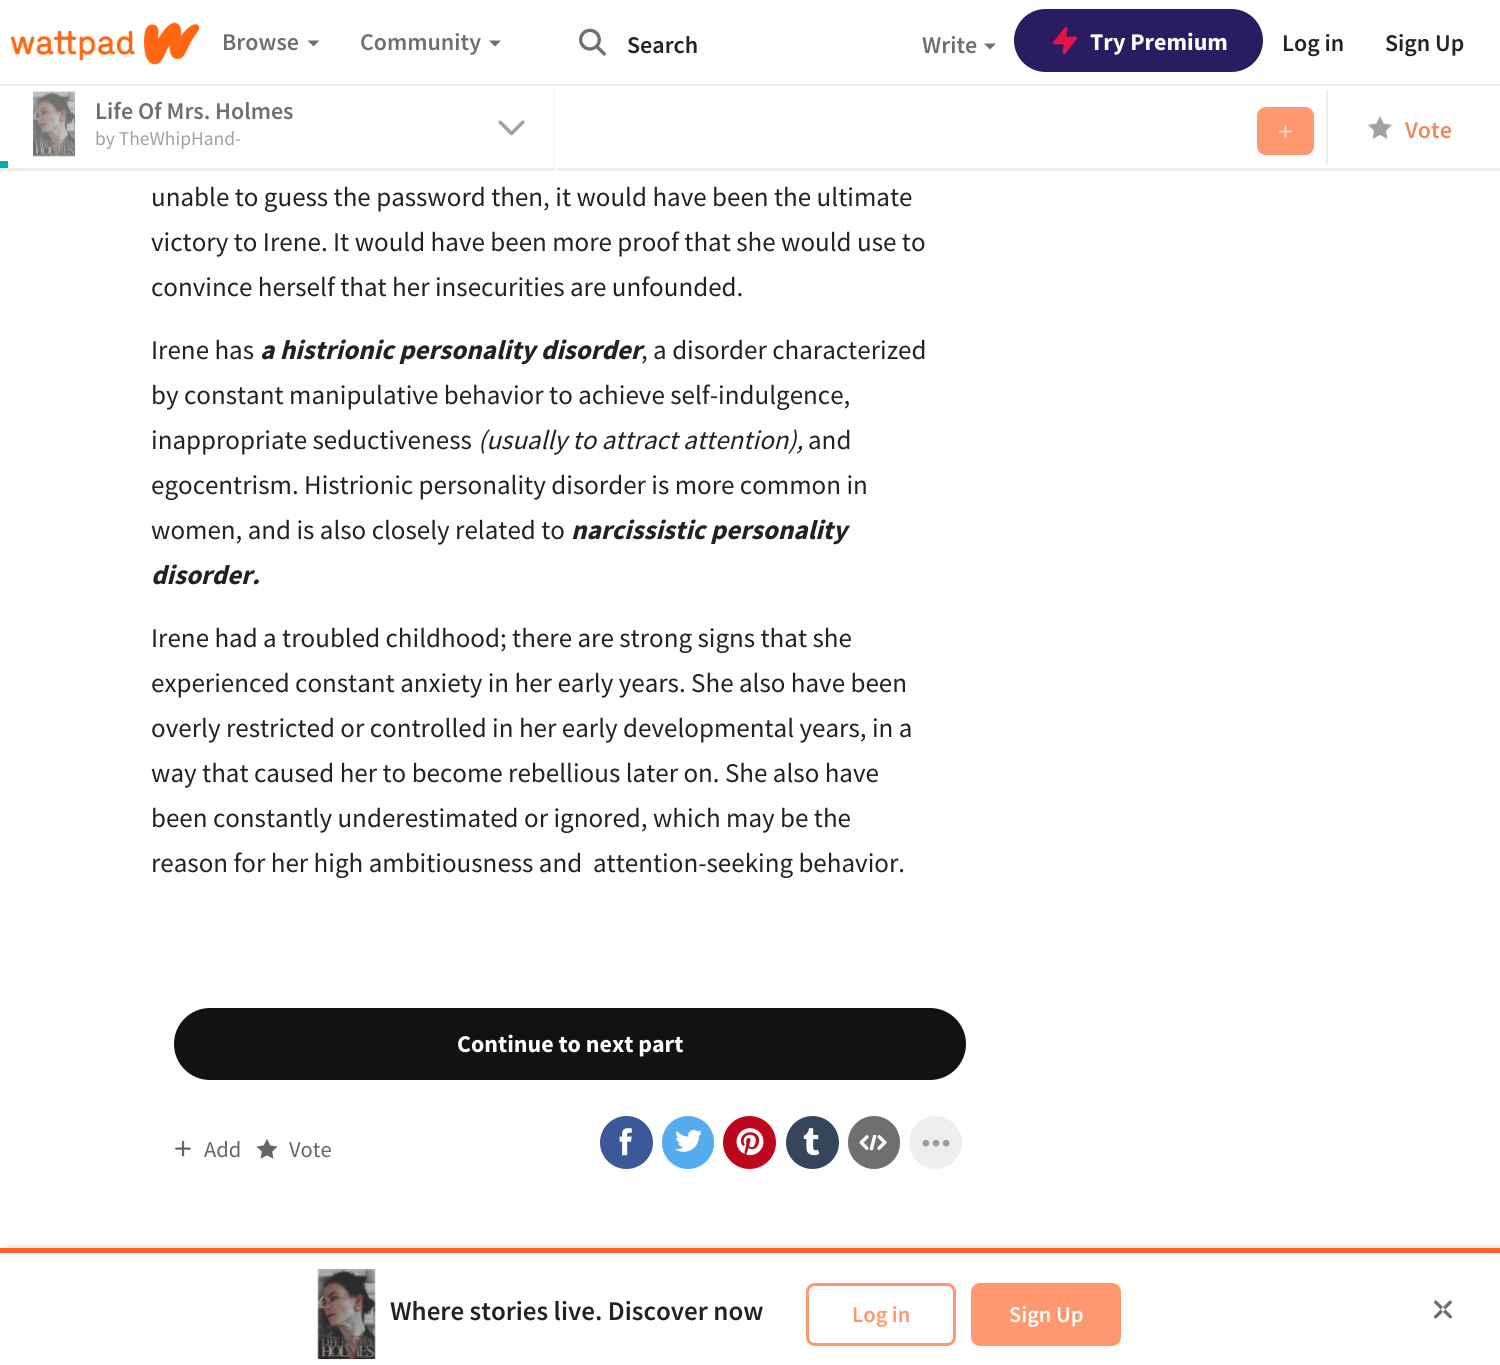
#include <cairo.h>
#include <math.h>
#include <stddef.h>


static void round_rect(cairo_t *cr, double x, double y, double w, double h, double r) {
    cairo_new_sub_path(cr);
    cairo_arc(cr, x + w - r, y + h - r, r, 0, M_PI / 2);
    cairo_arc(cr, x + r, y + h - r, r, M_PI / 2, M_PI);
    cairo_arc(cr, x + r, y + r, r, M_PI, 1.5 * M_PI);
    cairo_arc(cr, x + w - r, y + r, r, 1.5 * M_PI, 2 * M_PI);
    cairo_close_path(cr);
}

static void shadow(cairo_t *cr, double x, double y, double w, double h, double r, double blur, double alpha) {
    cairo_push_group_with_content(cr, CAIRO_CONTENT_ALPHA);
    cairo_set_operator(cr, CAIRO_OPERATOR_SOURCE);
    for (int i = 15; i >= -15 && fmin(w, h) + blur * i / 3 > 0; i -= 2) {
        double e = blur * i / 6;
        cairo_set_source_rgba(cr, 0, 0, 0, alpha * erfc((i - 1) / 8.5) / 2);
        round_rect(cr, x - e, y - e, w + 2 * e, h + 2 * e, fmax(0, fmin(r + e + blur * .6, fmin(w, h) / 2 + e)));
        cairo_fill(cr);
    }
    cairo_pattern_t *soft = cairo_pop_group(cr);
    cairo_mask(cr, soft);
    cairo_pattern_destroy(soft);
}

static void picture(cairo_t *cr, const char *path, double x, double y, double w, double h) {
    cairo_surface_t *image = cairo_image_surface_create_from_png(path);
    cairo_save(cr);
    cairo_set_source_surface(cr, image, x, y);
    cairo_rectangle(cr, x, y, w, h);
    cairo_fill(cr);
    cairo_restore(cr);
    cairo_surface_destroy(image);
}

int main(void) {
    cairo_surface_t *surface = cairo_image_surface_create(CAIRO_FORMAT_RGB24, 1500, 1365);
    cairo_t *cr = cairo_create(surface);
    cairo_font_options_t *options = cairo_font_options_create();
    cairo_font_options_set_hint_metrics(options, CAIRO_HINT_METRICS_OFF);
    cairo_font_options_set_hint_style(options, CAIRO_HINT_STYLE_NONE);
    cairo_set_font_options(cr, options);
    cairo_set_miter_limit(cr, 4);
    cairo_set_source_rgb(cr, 1, 1, 1);
    cairo_paint(cr);
    cairo_set_source_rgb(cr, 0.933, 0.933, 0.933);
    cairo_rectangle(cr, 0, 168, 1500, 3);
    cairo_fill(cr);
    cairo_set_source_rgba(cr, 0.933, 0.933, 0.933, 0.65);
    cairo_new_path(cr);
    cairo_move_to(cr, 555, 81);
    cairo_line_to(cr, 555, 171);
    cairo_line_to(cr, 554, 168);
    cairo_line_to(cr, 554, 84);
    cairo_close_path(cr);
    cairo_fill(cr);
    cairo_set_source_rgb(cr, 1, 1, 1);
    cairo_rectangle(cr, 554, 82, 1, 2);
    cairo_fill(cr);
    cairo_set_source_rgb(cr, 0.933, 0.933, 0.933);
    cairo_rectangle(cr, 0, 84, 1500, 2);
    cairo_fill(cr);
    picture(cr, "img1.png", 10, 22, 190, 43);
    cairo_select_font_face(cr, "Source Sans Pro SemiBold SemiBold", CAIRO_FONT_SLANT_NORMAL, CAIRO_FONT_WEIGHT_NORMAL);
    cairo_set_font_size(cr, 24);
    cairo_set_source_rgb(cr, 0.435, 0.435, 0.435);
    cairo_move_to(cr, 222, 50);
    cairo_show_text(cr, "Browse");
    cairo_new_path(cr);
    cairo_move_to(cr, 307.5, 40.5);
    cairo_line_to(cr, 319.5, 40.5);
    cairo_line_to(cr, 313.5, 46.5);
    cairo_close_path(cr);
    cairo_fill(cr);
    cairo_move_to(cr, 360, 50);
    cairo_show_text(cr, "Community");
    cairo_new_path(cr);
    cairo_move_to(cr, 489, 40.5);
    cairo_line_to(cr, 501, 40.5);
    cairo_line_to(cr, 495, 46.5);
    cairo_close_path(cr);
    cairo_fill(cr);
    picture(cr, "img2.png", 579, 28, 27, 28);
    cairo_set_source_rgb(cr, 0.133, 0.133, 0.133);
    cairo_move_to(cr, 627, 53);
    cairo_show_text(cr, "Search");
    cairo_set_source_rgb(cr, 0.435, 0.435, 0.435);
    cairo_move_to(cr, 922, 53);
    cairo_show_text(cr, "Write");
    cairo_new_path(cr);
    cairo_move_to(cr, 984, 43.5);
    cairo_line_to(cr, 996, 43.5);
    cairo_line_to(cr, 990, 49.5);
    cairo_close_path(cr);
    cairo_fill(cr);
    cairo_set_source_rgb(cr, 0.165, 0.11, 0.376);
    round_rect(cr, 1014, 9, 249, 63, 31.5);
    cairo_fill(cr);
    cairo_set_source_rgb(cr, 0.91, 0.071, 0.286);
    cairo_new_path(cr);
    cairo_move_to(cr, 1066, 28);
    cairo_line_to(cr, 1054, 43);
    cairo_line_to(cr, 1065, 43);
    cairo_line_to(cr, 1064, 53);
    cairo_line_to(cr, 1076, 38);
    cairo_line_to(cr, 1065, 38);
    cairo_close_path(cr);
    cairo_fill_preserve(cr);
    cairo_set_line_width(cr, 2.5);
    cairo_set_line_cap(cr, CAIRO_LINE_CAP_ROUND);
    cairo_set_line_join(cr, CAIRO_LINE_JOIN_ROUND);
    cairo_stroke(cr);
    cairo_select_font_face(cr, "Source Sans Pro", CAIRO_FONT_SLANT_NORMAL, CAIRO_FONT_WEIGHT_BOLD);
    cairo_set_source_rgb(cr, 1, 1, 1);
    cairo_move_to(cr, 1090, 50);
    cairo_show_text(cr, "Try Premium");
    cairo_select_font_face(cr, "Source Sans Pro SemiBold SemiBold", CAIRO_FONT_SLANT_NORMAL, CAIRO_FONT_WEIGHT_NORMAL);
    cairo_set_source_rgb(cr, 0.133, 0.133, 0.133);
    cairo_move_to(cr, 1282, 51);
    cairo_show_text(cr, "Log in");
    cairo_move_to(cr, 1385, 51);
    cairo_show_text(cr, "Sign Up");
    cairo_set_source_rgb(cr, 1, 1, 1);
    cairo_rectangle(cr, 555, 168, 2, 3);
    cairo_fill(cr);
    cairo_set_source_rgb(cr, 0.957, 0.957, 0.957);
    cairo_rectangle(cr, 33, 92, 42, 64);
    cairo_fill(cr);
    picture(cr, "img3.png", 33, 91, 42, 66);
    cairo_set_source_rgb(cr, 0.435, 0.435, 0.435);
    cairo_move_to(cr, 95, 119);
    cairo_show_text(cr, "Life Of Mrs. Holmes");
    cairo_select_font_face(cr, "Source Sans Pro", CAIRO_FONT_SLANT_NORMAL, CAIRO_FONT_WEIGHT_NORMAL);
    cairo_set_font_size(cr, 19.5);
    cairo_set_source_rgb(cr, 0.631, 0.631, 0.631);
    cairo_move_to(cr, 95, 145);
    cairo_show_text(cr, "by TheWhipHand-");
    picture(cr, "img4.png", 498, 120, 27, 16);
    cairo_set_source_rgb(cr, 1, 0.596, 0.435);
    round_rect(cr, 1257, 107, 57, 48, 9);
    cairo_fill(cr);
    picture(cr, "img5.png", 1279, 125, 13, 13);
    cairo_set_source_rgb(cr, 0.933, 0.933, 0.933);
    cairo_rectangle(cr, 1326, 90, 2, 74);
    cairo_fill(cr);
    picture(cr, "img6.png", 1368, 116, 24, 23);
    cairo_select_font_face(cr, "Source Sans Pro SemiBold SemiBold", CAIRO_FONT_SLANT_NORMAL, CAIRO_FONT_WEIGHT_NORMAL);
    cairo_set_font_size(cr, 24);
    cairo_set_source_rgb(cr, 0.937, 0.533, 0.373);
    cairo_move_to(cr, 1405, 138);
    cairo_show_text(cr, "Vote");
    cairo_set_source_rgb(cr, 0, 0.698, 0.698);
    cairo_rectangle(cr, 0, 161, 8, 7);
    cairo_fill(cr);
    cairo_select_font_face(cr, "Source Sans Pro", CAIRO_FONT_SLANT_NORMAL, CAIRO_FONT_WEIGHT_NORMAL);
    cairo_set_font_size(cr, 27);
    cairo_set_source_rgb(cr, 0.133, 0.133, 0.133);
    cairo_move_to(cr, 151, 206);
    cairo_show_text(cr, "unable to guess the password then, it would have been the ultimate");
    cairo_move_to(cr, 151, 251);
    cairo_show_text(cr, "victory to Irene. It would have been more proof that she would use to");
    cairo_move_to(cr, 151, 296);
    cairo_show_text(cr, "convince herself that her insecurities are unfounded.");
    cairo_move_to(cr, 151, 359);
    cairo_show_text(cr, "Irene has");
    cairo_select_font_face(cr, "Source Sans Pro", CAIRO_FONT_SLANT_ITALIC, CAIRO_FONT_WEIGHT_BOLD);
    cairo_move_to(cr, 260, 359);
    cairo_show_text(cr, "a histrionic personality disorder");
    cairo_select_font_face(cr, "Source Sans Pro", CAIRO_FONT_SLANT_NORMAL, CAIRO_FONT_WEIGHT_NORMAL);
    cairo_move_to(cr, 641, 359);
    cairo_show_text(cr, ", a disorder characterized");
    cairo_move_to(cr, 151, 404);
    cairo_show_text(cr, "by constant manipulative behavior to achieve self-indulgence,");
    cairo_move_to(cr, 151, 449);
    cairo_show_text(cr, "inappropriate seductiveness");
    cairo_select_font_face(cr, "Source Sans Pro", CAIRO_FONT_SLANT_ITALIC, CAIRO_FONT_WEIGHT_NORMAL);
    cairo_move_to(cr, 478, 449);
    cairo_show_text(cr, "(usually to attract attention),");
    cairo_select_font_face(cr, "Source Sans Pro", CAIRO_FONT_SLANT_NORMAL, CAIRO_FONT_WEIGHT_NORMAL);
    cairo_move_to(cr, 808, 449);
    cairo_show_text(cr, "and");
    cairo_move_to(cr, 151, 494);
    cairo_show_text(cr, "egocentrism. Histrionic personality disorder is more common in");
    cairo_move_to(cr, 151, 539);
    cairo_show_text(cr, "women, and is also closely related to");
    cairo_select_font_face(cr, "Source Sans Pro", CAIRO_FONT_SLANT_ITALIC, CAIRO_FONT_WEIGHT_BOLD);
    cairo_move_to(cr, 571, 539);
    cairo_show_text(cr, "narcissistic personality");
    cairo_move_to(cr, 151, 584);
    cairo_show_text(cr, "disorder.");
    cairo_select_font_face(cr, "Source Sans Pro", CAIRO_FONT_SLANT_NORMAL, CAIRO_FONT_WEIGHT_NORMAL);
    cairo_move_to(cr, 151, 647);
    cairo_show_text(cr, "Irene had a troubled childhood; there are strong signs that she");
    cairo_move_to(cr, 151, 692);
    cairo_show_text(cr, "experienced constant anxiety in her early years. She also have been");
    cairo_move_to(cr, 151, 737);
    cairo_show_text(cr, "overly restricted or controlled in her early developmental years, in a");
    cairo_move_to(cr, 151, 782);
    cairo_show_text(cr, "way that caused her to become rebellious later on. She also have");
    cairo_move_to(cr, 151, 827);
    cairo_show_text(cr, "been constantly underestimated or ignored, which may be the");
    cairo_move_to(cr, 151, 872);
    cairo_show_text(cr, "reason for her high ambitiousness and  attention-seeking behavior.");
    cairo_set_source_rgb(cr, 0.071, 0.071, 0.071);
    round_rect(cr, 174, 1008, 792, 72, 36);
    cairo_fill(cr);
    cairo_select_font_face(cr, "Source Sans Pro", CAIRO_FONT_SLANT_NORMAL, CAIRO_FONT_WEIGHT_BOLD);
    cairo_set_font_size(cr, 24);
    cairo_set_source_rgb(cr, 1, 1, 1);
    cairo_move_to(cr, 457, 1052);
    cairo_show_text(cr, "Continue to next part");
    picture(cr, "img7.png", 175, 1140, 16, 17);
    cairo_select_font_face(cr, "Source Sans Pro", CAIRO_FONT_SLANT_NORMAL, CAIRO_FONT_WEIGHT_NORMAL);
    cairo_set_font_size(cr, 22.5);
    cairo_set_source_rgb(cr, 0.396, 0.396, 0.396);
    cairo_move_to(cr, 204, 1157);
    cairo_show_text(cr, "Add");
    picture(cr, "img8.png", 256, 1139, 22, 20);
    cairo_move_to(cr, 289, 1157);
    cairo_show_text(cr, "Vote");
    cairo_set_source_rgb(cr, 0.231, 0.349, 0.596);
    cairo_new_path(cr);
    cairo_arc(cr, 626.5, 1142.5, 26.5, 0, 2 * M_PI);
    cairo_fill(cr);
    picture(cr, "img9.png", 619, 1128, 13, 28);
    cairo_set_source_rgb(cr, 0.333, 0.675, 0.933);
    round_rect(cr, 662, 1116, 52, 53, 26);
    cairo_fill(cr);
    picture(cr, "img10.png", 675, 1129, 27, 23);
    cairo_set_source_rgb(cr, 0.741, 0.031, 0.11);
    cairo_arc(cr, 749.5, 1142.5, 26.5, 0, 2 * M_PI);
    cairo_fill(cr);
    picture(cr, "img11.png", 736, 1128, 28, 28);
    cairo_set_source_rgb(cr, 0.208, 0.275, 0.361);
    cairo_arc(cr, 812.5, 1142.5, 26.5, 0, 2 * M_PI);
    cairo_fill(cr);
    picture(cr, "img12.png", 803, 1128, 17, 28);
    cairo_set_source_rgb(cr, 0.435, 0.435, 0.435);
    round_rect(cr, 848, 1116, 52, 53, 26);
    cairo_fill(cr);
    picture(cr, "img13.png", 859, 1134, 28, 17);
    cairo_set_source_rgb(cr, 0.933, 0.933, 0.933);
    cairo_arc(cr, 935.5, 1142.5, 26.5, 0, 2 * M_PI);
    cairo_fill(cr);
    picture(cr, "img14.png", 922, 1139, 28, 8);
    cairo_set_source_rgb(cr, 0, 0, 0);
    shadow(cr, 8, 1248, 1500, 117, 0, 4, 0.2);
    cairo_set_source_rgb(cr, 1, 1, 1);
    cairo_rectangle(cr, 1, 1253, 1499, 112);
    cairo_fill(cr);
    cairo_set_source_rgb(cr, 1, 0.38, 0.133);
    cairo_rectangle(cr, 0, 1248, 1500, 5);
    cairo_fill(cr);
    picture(cr, "img15.png", 317, 1269, 59, 91);
    cairo_select_font_face(cr, "Source Sans Pro SemiBold SemiBold", CAIRO_FONT_SLANT_NORMAL, CAIRO_FONT_WEIGHT_NORMAL);
    cairo_set_font_size(cr, 27);
    cairo_set_source_rgb(cr, 0.133, 0.133, 0.133);
    cairo_move_to(cr, 390, 1320);
    cairo_show_text(cr, "Where stories live. Discover now");
    round_rect(cr, 807.5, 1284.5, 147, 60, 7.5);
    cairo_set_source_rgb(cr, 1, 0.596, 0.435);
    cairo_set_line_width(cr, 3);
    cairo_set_line_cap(cr, CAIRO_LINE_CAP_BUTT);
    cairo_set_line_join(cr, CAIRO_LINE_JOIN_MITER);
    cairo_stroke(cr);
    cairo_set_font_size(cr, 22.5);
    cairo_move_to(cr, 852, 1322);
    cairo_show_text(cr, "Log in");
    round_rect(cr, 971, 1283, 150, 63, 9);
    cairo_fill(cr);
    cairo_set_source_rgb(cr, 1, 1, 1);
    cairo_move_to(cr, 1009, 1322);
    cairo_show_text(cr, "Sign Up");
    picture(cr, "img16.png", 1434, 1300, 18, 19);
    cairo_surface_write_to_png(surface, "page.png");
    cairo_font_options_destroy(options);
    cairo_destroy(cr);
    cairo_surface_destroy(surface);
    return 0;
}
